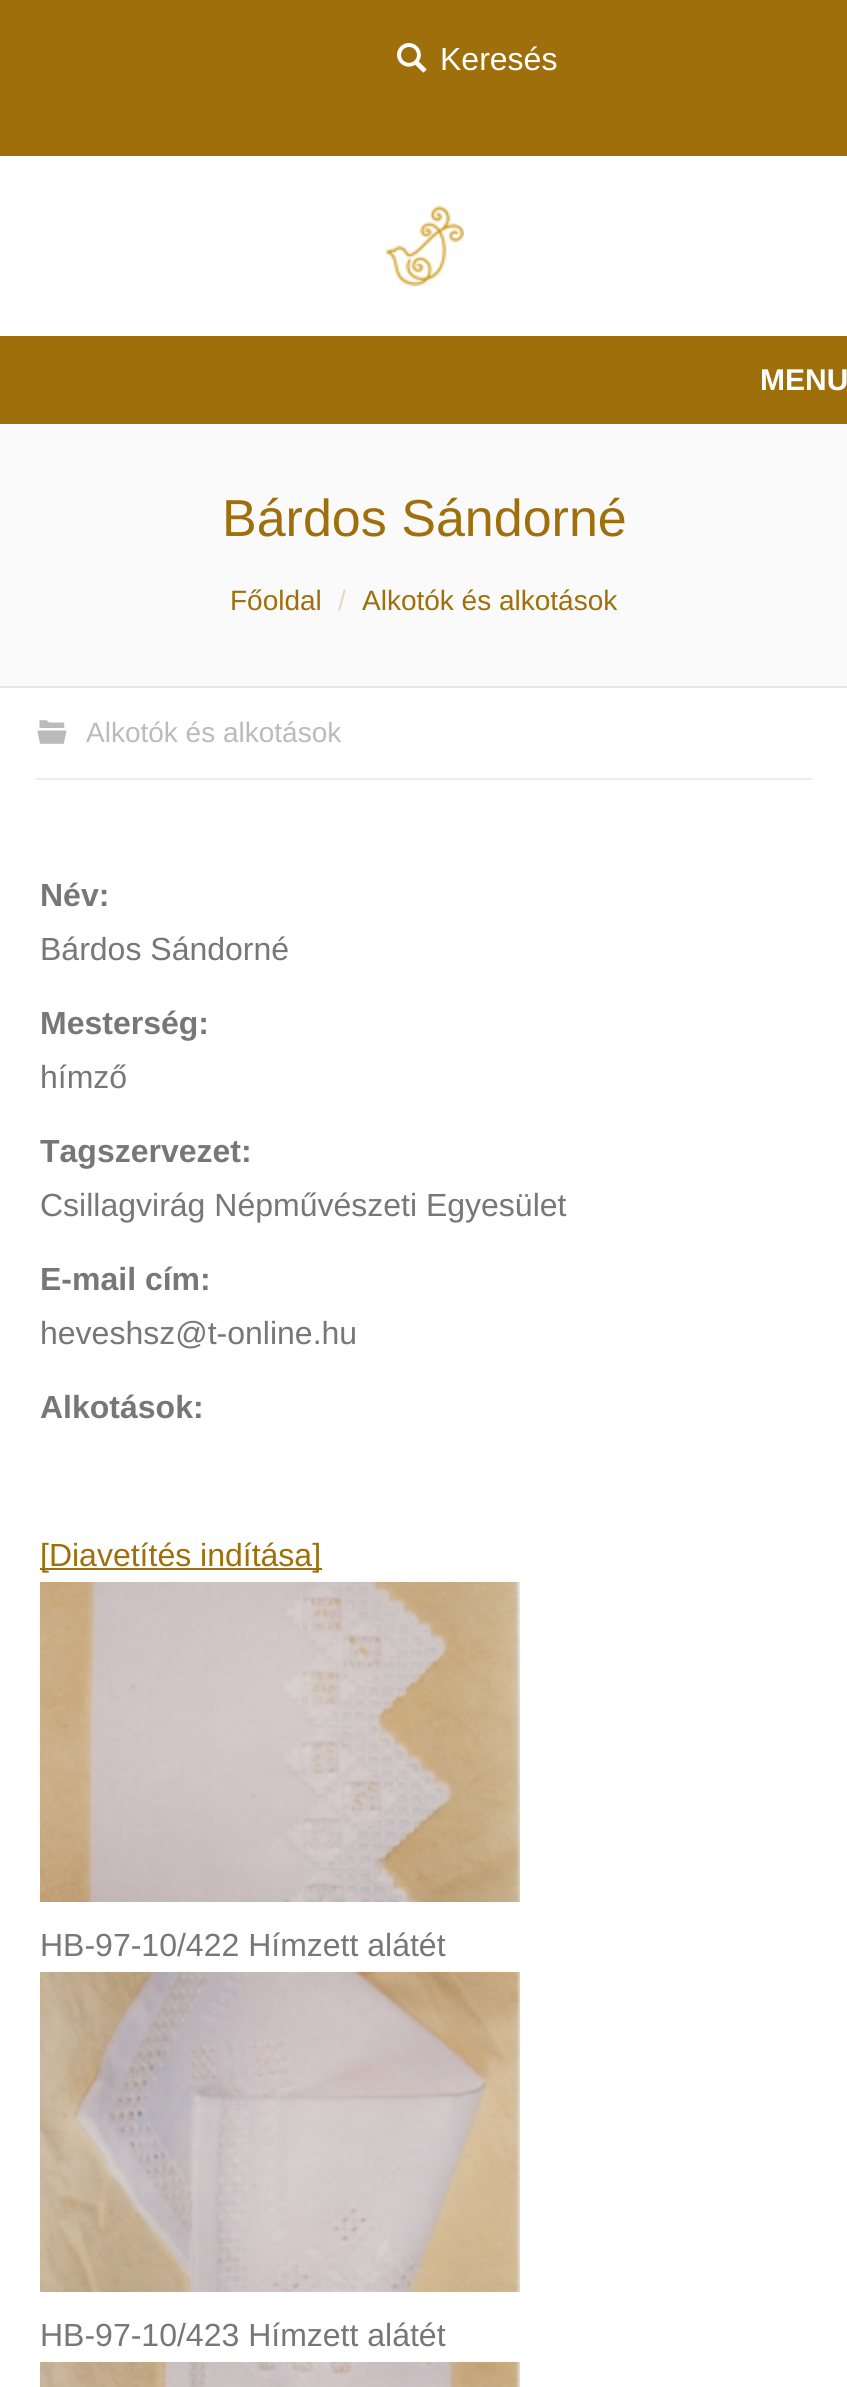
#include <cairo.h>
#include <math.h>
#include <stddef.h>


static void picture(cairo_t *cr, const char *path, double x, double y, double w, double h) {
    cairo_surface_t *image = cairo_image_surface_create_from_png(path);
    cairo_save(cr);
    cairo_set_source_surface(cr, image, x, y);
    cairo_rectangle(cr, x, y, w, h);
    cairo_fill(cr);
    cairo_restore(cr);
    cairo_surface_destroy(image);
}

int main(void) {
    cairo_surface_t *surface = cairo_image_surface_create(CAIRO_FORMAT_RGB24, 847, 2387);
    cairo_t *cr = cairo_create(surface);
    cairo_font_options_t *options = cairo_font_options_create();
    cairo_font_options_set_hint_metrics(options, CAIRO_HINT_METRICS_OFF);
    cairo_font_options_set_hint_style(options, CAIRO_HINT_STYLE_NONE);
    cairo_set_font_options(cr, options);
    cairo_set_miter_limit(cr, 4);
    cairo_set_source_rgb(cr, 1, 1, 1);
    cairo_paint(cr);
    cairo_set_source_rgb(cr, 0.624, 0.435, 0.043);
    cairo_rectangle(cr, 0, 0, 847, 156);
    cairo_fill(cr);
    picture(cr, "img1.png", 397, 43, 30, 30);
    cairo_select_font_face(cr, "Liberation Sans", CAIRO_FONT_SLANT_NORMAL, CAIRO_FONT_WEIGHT_NORMAL);
    cairo_set_font_size(cr, 32);
    cairo_set_source_rgb(cr, 1, 1, 1);
    cairo_move_to(cr, 440, 70);
    cairo_show_text(cr, "Keresés");
    picture(cr, "img2.png", 385, 206, 79, 80);
    cairo_set_source_rgb(cr, 0.624, 0.435, 0.043);
    cairo_rectangle(cr, 0, 336, 847, 88);
    cairo_fill(cr);
    cairo_select_font_face(cr, "Liberation Sans", CAIRO_FONT_SLANT_NORMAL, CAIRO_FONT_WEIGHT_BOLD);
    cairo_set_font_size(cr, 30);
    cairo_set_source_rgb(cr, 1, 1, 1);
    cairo_move_to(cr, 760, 390);
    cairo_show_text(cr, "MENU");
    cairo_set_source_rgb(cr, 0.98, 0.98, 0.98);
    cairo_rectangle(cr, 0, 424, 847, 262);
    cairo_fill(cr);
    cairo_set_source_rgb(cr, 0.902, 0.902, 0.902);
    cairo_rectangle(cr, 0, 686, 847, 2);
    cairo_fill(cr);
    cairo_select_font_face(cr, "Liberation Sans", CAIRO_FONT_SLANT_NORMAL, CAIRO_FONT_WEIGHT_NORMAL);
    cairo_set_font_size(cr, 52);
    cairo_set_source_rgb(cr, 0.624, 0.435, 0.043);
    cairo_move_to(cr, 222, 536);
    cairo_show_text(cr, "Bárdos Sándorné");
    cairo_set_font_size(cr, 28);
    cairo_move_to(cr, 230, 610);
    cairo_show_text(cr, "Főoldal");
    cairo_set_source_rgb(cr, 0.894, 0.847, 0.749);
    cairo_move_to(cr, 338, 610);
    cairo_show_text(cr, "/");
    cairo_set_source_rgb(cr, 0.624, 0.435, 0.043);
    cairo_move_to(cr, 362, 610);
    cairo_show_text(cr, "Alkotók és alkotások");
    cairo_set_source_rgb(cr, 0.922, 0.922, 0.922);
    cairo_rectangle(cr, 36, 778, 776, 2);
    cairo_fill(cr);
    picture(cr, "img3.png", 37, 720, 30, 24);
    cairo_set_source_rgb(cr, 0.733, 0.733, 0.733);
    cairo_move_to(cr, 86, 742);
    cairo_show_text(cr, "Alkotók és alkotások");
    cairo_select_font_face(cr, "Liberation Sans", CAIRO_FONT_SLANT_NORMAL, CAIRO_FONT_WEIGHT_BOLD);
    cairo_set_font_size(cr, 32);
    cairo_set_source_rgb(cr, 0.467, 0.467, 0.467);
    cairo_move_to(cr, 40, 906);
    cairo_show_text(cr, "Név:");
    cairo_select_font_face(cr, "Liberation Sans", CAIRO_FONT_SLANT_NORMAL, CAIRO_FONT_WEIGHT_NORMAL);
    cairo_move_to(cr, 40, 960);
    cairo_show_text(cr, "Bárdos Sándorné");
    cairo_select_font_face(cr, "Liberation Sans", CAIRO_FONT_SLANT_NORMAL, CAIRO_FONT_WEIGHT_BOLD);
    cairo_move_to(cr, 40, 1034);
    cairo_show_text(cr, "Mesterség:");
    cairo_select_font_face(cr, "Liberation Sans", CAIRO_FONT_SLANT_NORMAL, CAIRO_FONT_WEIGHT_NORMAL);
    cairo_move_to(cr, 40, 1088);
    cairo_show_text(cr, "hímző");
    cairo_select_font_face(cr, "Liberation Sans", CAIRO_FONT_SLANT_NORMAL, CAIRO_FONT_WEIGHT_BOLD);
    cairo_move_to(cr, 40, 1162);
    cairo_show_text(cr, "Tagszervezet:");
    cairo_select_font_face(cr, "Liberation Sans", CAIRO_FONT_SLANT_NORMAL, CAIRO_FONT_WEIGHT_NORMAL);
    cairo_move_to(cr, 40, 1216);
    cairo_show_text(cr, "Csillagvirág Népművészeti Egyesület");
    cairo_select_font_face(cr, "Liberation Sans", CAIRO_FONT_SLANT_NORMAL, CAIRO_FONT_WEIGHT_BOLD);
    cairo_move_to(cr, 40, 1290);
    cairo_show_text(cr, "E-mail cím:");
    cairo_select_font_face(cr, "Liberation Sans", CAIRO_FONT_SLANT_NORMAL, CAIRO_FONT_WEIGHT_NORMAL);
    cairo_move_to(cr, 40, 1344);
    cairo_show_text(cr, "heveshsz@t-online.hu");
    cairo_select_font_face(cr, "Liberation Sans", CAIRO_FONT_SLANT_NORMAL, CAIRO_FONT_WEIGHT_BOLD);
    cairo_move_to(cr, 40, 1418);
    cairo_show_text(cr, "Alkotások:");
    cairo_set_source_rgb(cr, 0.624, 0.435, 0.043);
    cairo_rectangle(cr, 40, 1568, 282, 2);
    cairo_fill(cr);
    cairo_select_font_face(cr, "Liberation Sans", CAIRO_FONT_SLANT_NORMAL, CAIRO_FONT_WEIGHT_NORMAL);
    cairo_move_to(cr, 40, 1566);
    cairo_show_text(cr, "[Diavetítés indítása]");
    picture(cr, "img4.png", 40, 1582, 480, 320);
    cairo_set_source_rgb(cr, 0.467, 0.467, 0.467);
    cairo_move_to(cr, 40, 1956);
    cairo_show_text(cr, "HB-97-10/422 Hímzett alátét");
    picture(cr, "img5.png", 40, 1972, 480, 320);
    cairo_move_to(cr, 40, 2346);
    cairo_show_text(cr, "HB-97-10/423 Hímzett alátét");
    picture(cr, "img6.png", 40, 2362, 480, 25);
    cairo_surface_write_to_png(surface, "page.png");
    cairo_font_options_destroy(options);
    cairo_destroy(cr);
    cairo_surface_destroy(surface);
    return 0;
}
